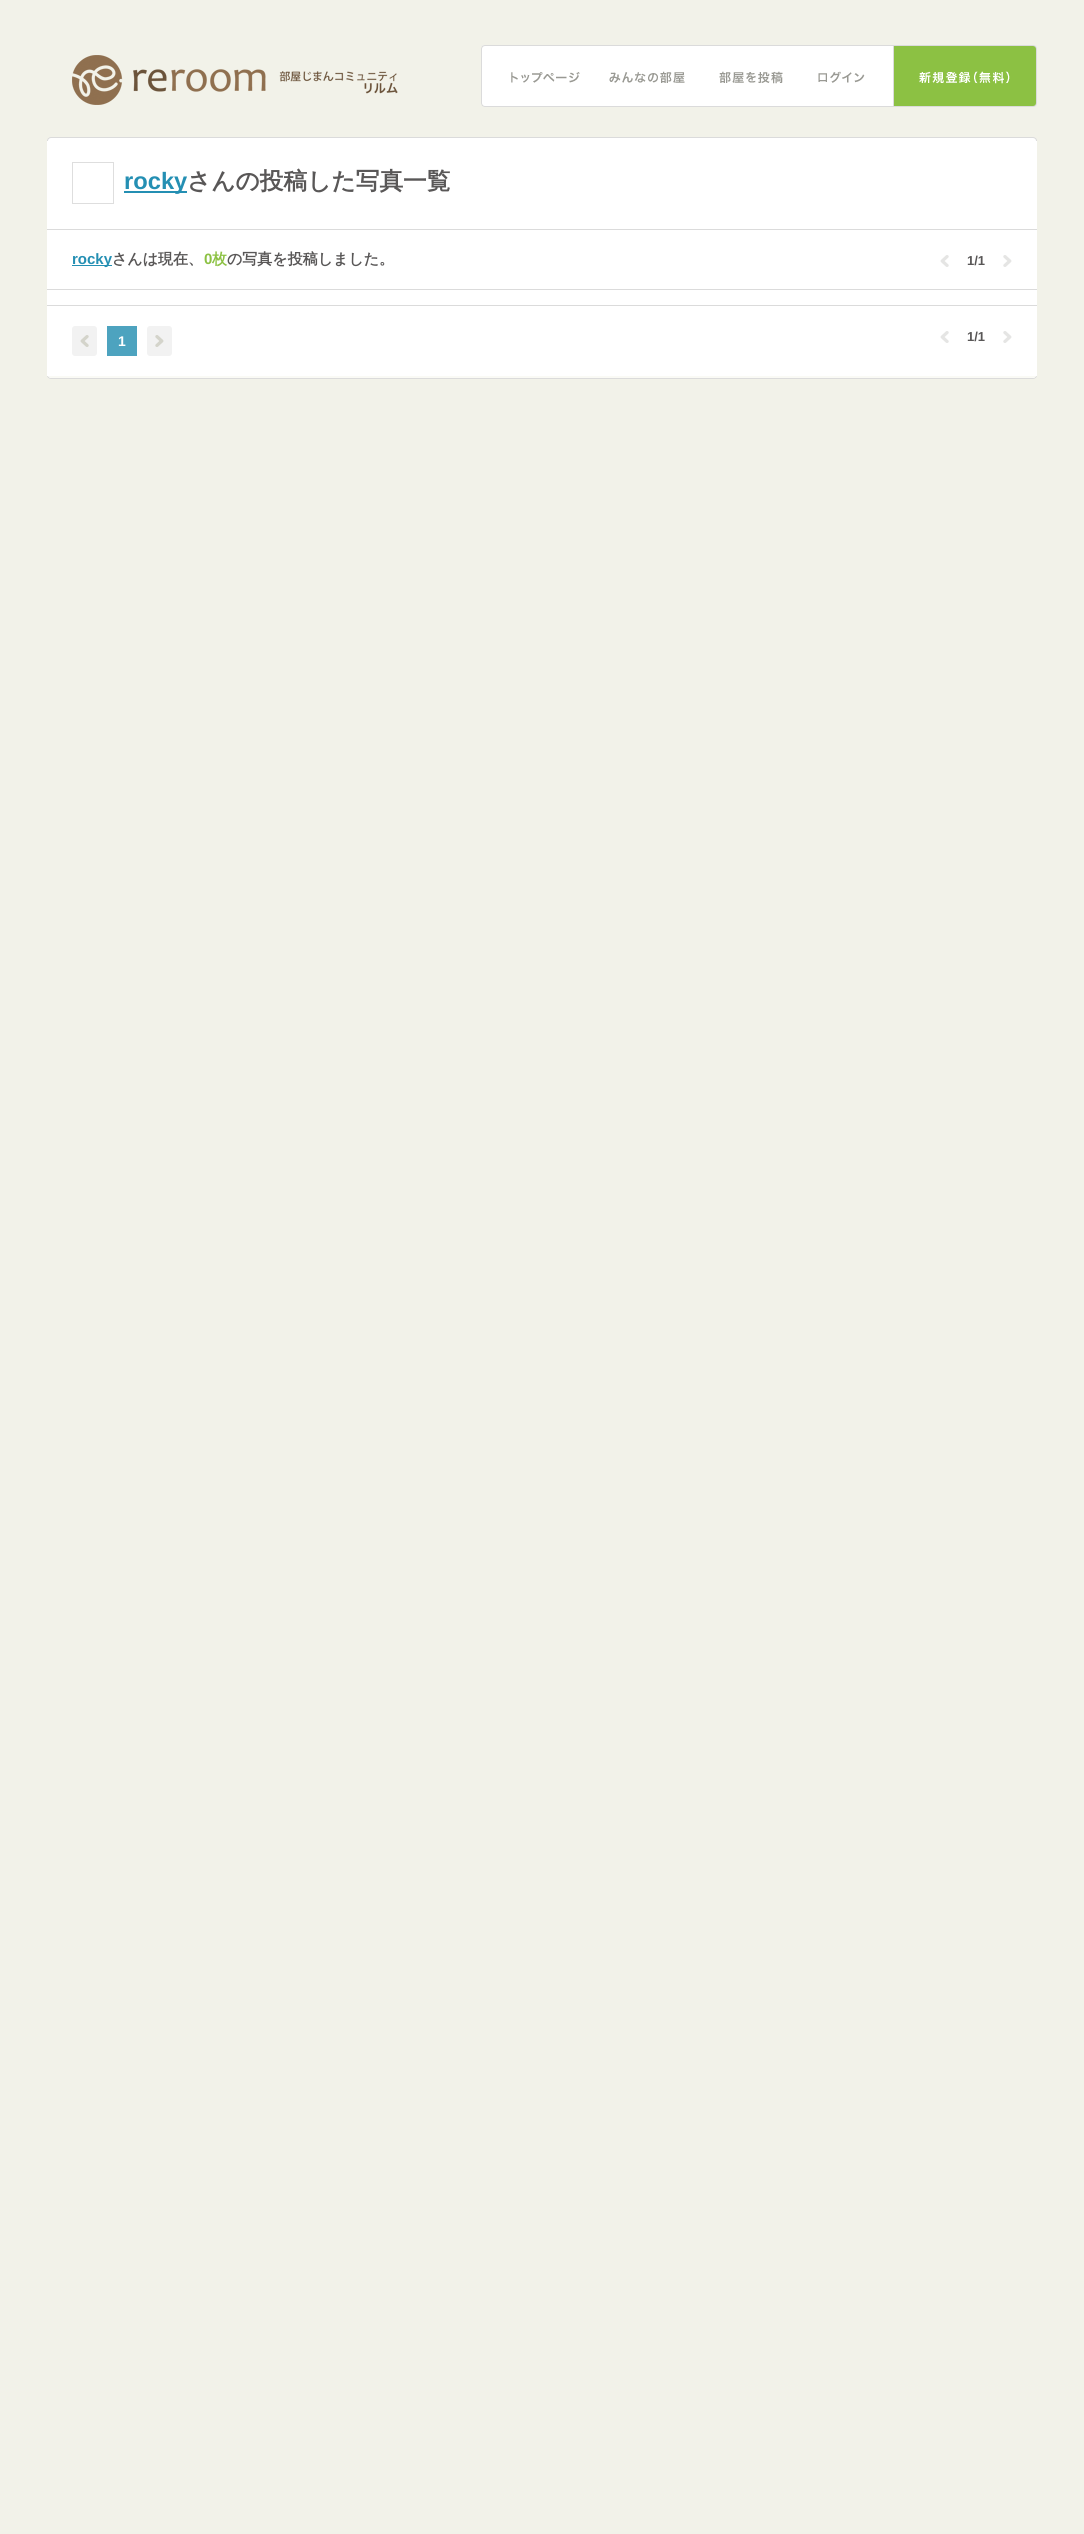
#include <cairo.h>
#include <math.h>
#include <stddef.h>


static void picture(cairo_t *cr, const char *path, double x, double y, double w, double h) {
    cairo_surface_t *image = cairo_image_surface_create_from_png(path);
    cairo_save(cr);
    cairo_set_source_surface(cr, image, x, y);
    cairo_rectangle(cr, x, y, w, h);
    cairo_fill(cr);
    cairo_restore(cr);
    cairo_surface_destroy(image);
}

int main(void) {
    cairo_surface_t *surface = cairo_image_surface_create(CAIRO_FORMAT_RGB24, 1084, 2534);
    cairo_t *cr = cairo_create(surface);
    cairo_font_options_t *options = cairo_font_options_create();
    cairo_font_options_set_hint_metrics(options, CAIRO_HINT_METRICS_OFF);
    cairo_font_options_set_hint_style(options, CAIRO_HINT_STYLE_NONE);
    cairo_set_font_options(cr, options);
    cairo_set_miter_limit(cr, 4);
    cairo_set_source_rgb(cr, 0.949, 0.949, 0.914);
    cairo_paint(cr);
    picture(cr, "img1.png", 72, 55, 332, 50);
    picture(cr, "img2.png", 481, 45, 113, 62);
    picture(cr, "img3.png", 594, 45, 106, 62);
    picture(cr, "img4.png", 700, 45, 103, 62);
    picture(cr, "img5.png", 803, 45, 90, 62);
    picture(cr, "img6.png", 893, 45, 144, 62);
    cairo_set_source_rgb(cr, 1, 1, 1);
    cairo_rectangle(cr, 47, 141, 990, 235);
    cairo_fill(cr);
    picture(cr, "img7.png", 47, 137, 990, 4);
    cairo_set_source_rgb(cr, 0.859, 0.859, 0.859);
    cairo_rectangle(cr, 47, 229, 990, 1);
    cairo_fill(cr);
    cairo_set_source_rgb(cr, 0.141, 0.561, 0.702);
    cairo_rectangle(cr, 124, 191, 63, 2);
    cairo_fill(cr);
    cairo_select_font_face(cr, "Liberation Sans", CAIRO_FONT_SLANT_NORMAL, CAIRO_FONT_WEIGHT_BOLD);
    cairo_set_font_size(cr, 23.7);
    cairo_move_to(cr, 124, 189);
    cairo_show_text(cr, "rocky");
    cairo_rectangle(cr, 72.5, 162.5, 41, 41);
    cairo_set_source_rgb(cr, 0.871, 0.871, 0.871);
    cairo_set_line_width(cr, 1);
    cairo_stroke(cr);
    cairo_select_font_face(cr, "WenQuanYi Zen Hei", CAIRO_FONT_SLANT_NORMAL, CAIRO_FONT_WEIGHT_BOLD);
    cairo_set_source_rgb(cr, 0.349, 0.341, 0.341);
    cairo_move_to(cr, 187, 189);
    cairo_show_text(cr, "さんの投稿した写真一覧");
    cairo_set_source_rgb(cr, 0.859, 0.859, 0.859);
    cairo_rectangle(cr, 47, 289, 990, 1);
    cairo_fill(cr);
    cairo_set_source_rgb(cr, 0.141, 0.561, 0.702);
    cairo_rectangle(cr, 72, 265, 40, 1);
    cairo_fill(cr);
    cairo_select_font_face(cr, "Liberation Sans", CAIRO_FONT_SLANT_NORMAL, CAIRO_FONT_WEIGHT_BOLD);
    cairo_set_font_size(cr, 15);
    cairo_move_to(cr, 72, 264);
    cairo_show_text(cr, "rocky");
    cairo_select_font_face(cr, "WenQuanYi Zen Hei", CAIRO_FONT_SLANT_NORMAL, CAIRO_FONT_WEIGHT_BOLD);
    cairo_set_source_rgb(cr, 0.349, 0.341, 0.341);
    cairo_move_to(cr, 112, 264);
    cairo_show_text(cr, "さんは現在、");
    cairo_select_font_face(cr, "Liberation Sans", CAIRO_FONT_SLANT_NORMAL, CAIRO_FONT_WEIGHT_BOLD);
    cairo_set_source_rgb(cr, 0.549, 0.757, 0.263);
    cairo_move_to(cr, 204, 264);
    cairo_show_text(cr, "0");
    cairo_select_font_face(cr, "WenQuanYi Zen Hei", CAIRO_FONT_SLANT_NORMAL, CAIRO_FONT_WEIGHT_BOLD);
    cairo_move_to(cr, 212, 264);
    cairo_show_text(cr, "枚");
    cairo_set_source_rgb(cr, 0.349, 0.341, 0.341);
    cairo_move_to(cr, 227, 264);
    cairo_show_text(cr, "の写真を投稿しました。");
    picture(cr, "img8.png", 940, 255, 9, 12);
    cairo_select_font_face(cr, "Liberation Sans", CAIRO_FONT_SLANT_NORMAL, CAIRO_FONT_WEIGHT_BOLD);
    cairo_set_font_size(cr, 13);
    cairo_move_to(cr, 967, 265);
    cairo_show_text(cr, "1/1");
    picture(cr, "img9.png", 1003, 255, 9, 12);
    cairo_set_source_rgb(cr, 0.859, 0.859, 0.859);
    cairo_rectangle(cr, 47, 305, 990, 1);
    cairo_fill(cr);
    picture(cr, "img10.png", 72, 326, 25, 30);
    cairo_set_source_rgb(cr, 0.302, 0.639, 0.749);
    cairo_rectangle(cr, 107, 326, 30, 30);
    cairo_fill(cr);
    cairo_set_font_size(cr, 14);
    cairo_set_source_rgb(cr, 1, 1, 1);
    cairo_move_to(cr, 118, 346);
    cairo_show_text(cr, "1");
    picture(cr, "img11.png", 147, 326, 25, 30);
    picture(cr, "img8.png", 940, 331, 9, 12);
    cairo_set_font_size(cr, 13);
    cairo_set_source_rgb(cr, 0.349, 0.341, 0.341);
    cairo_move_to(cr, 967, 341);
    cairo_show_text(cr, "1/1");
    picture(cr, "img9.png", 1003, 331, 9, 12);
    picture(cr, "img12.png", 47, 376, 990, 3);
    cairo_surface_write_to_png(surface, "page.png");
    cairo_font_options_destroy(options);
    cairo_destroy(cr);
    cairo_surface_destroy(surface);
    return 0;
}
